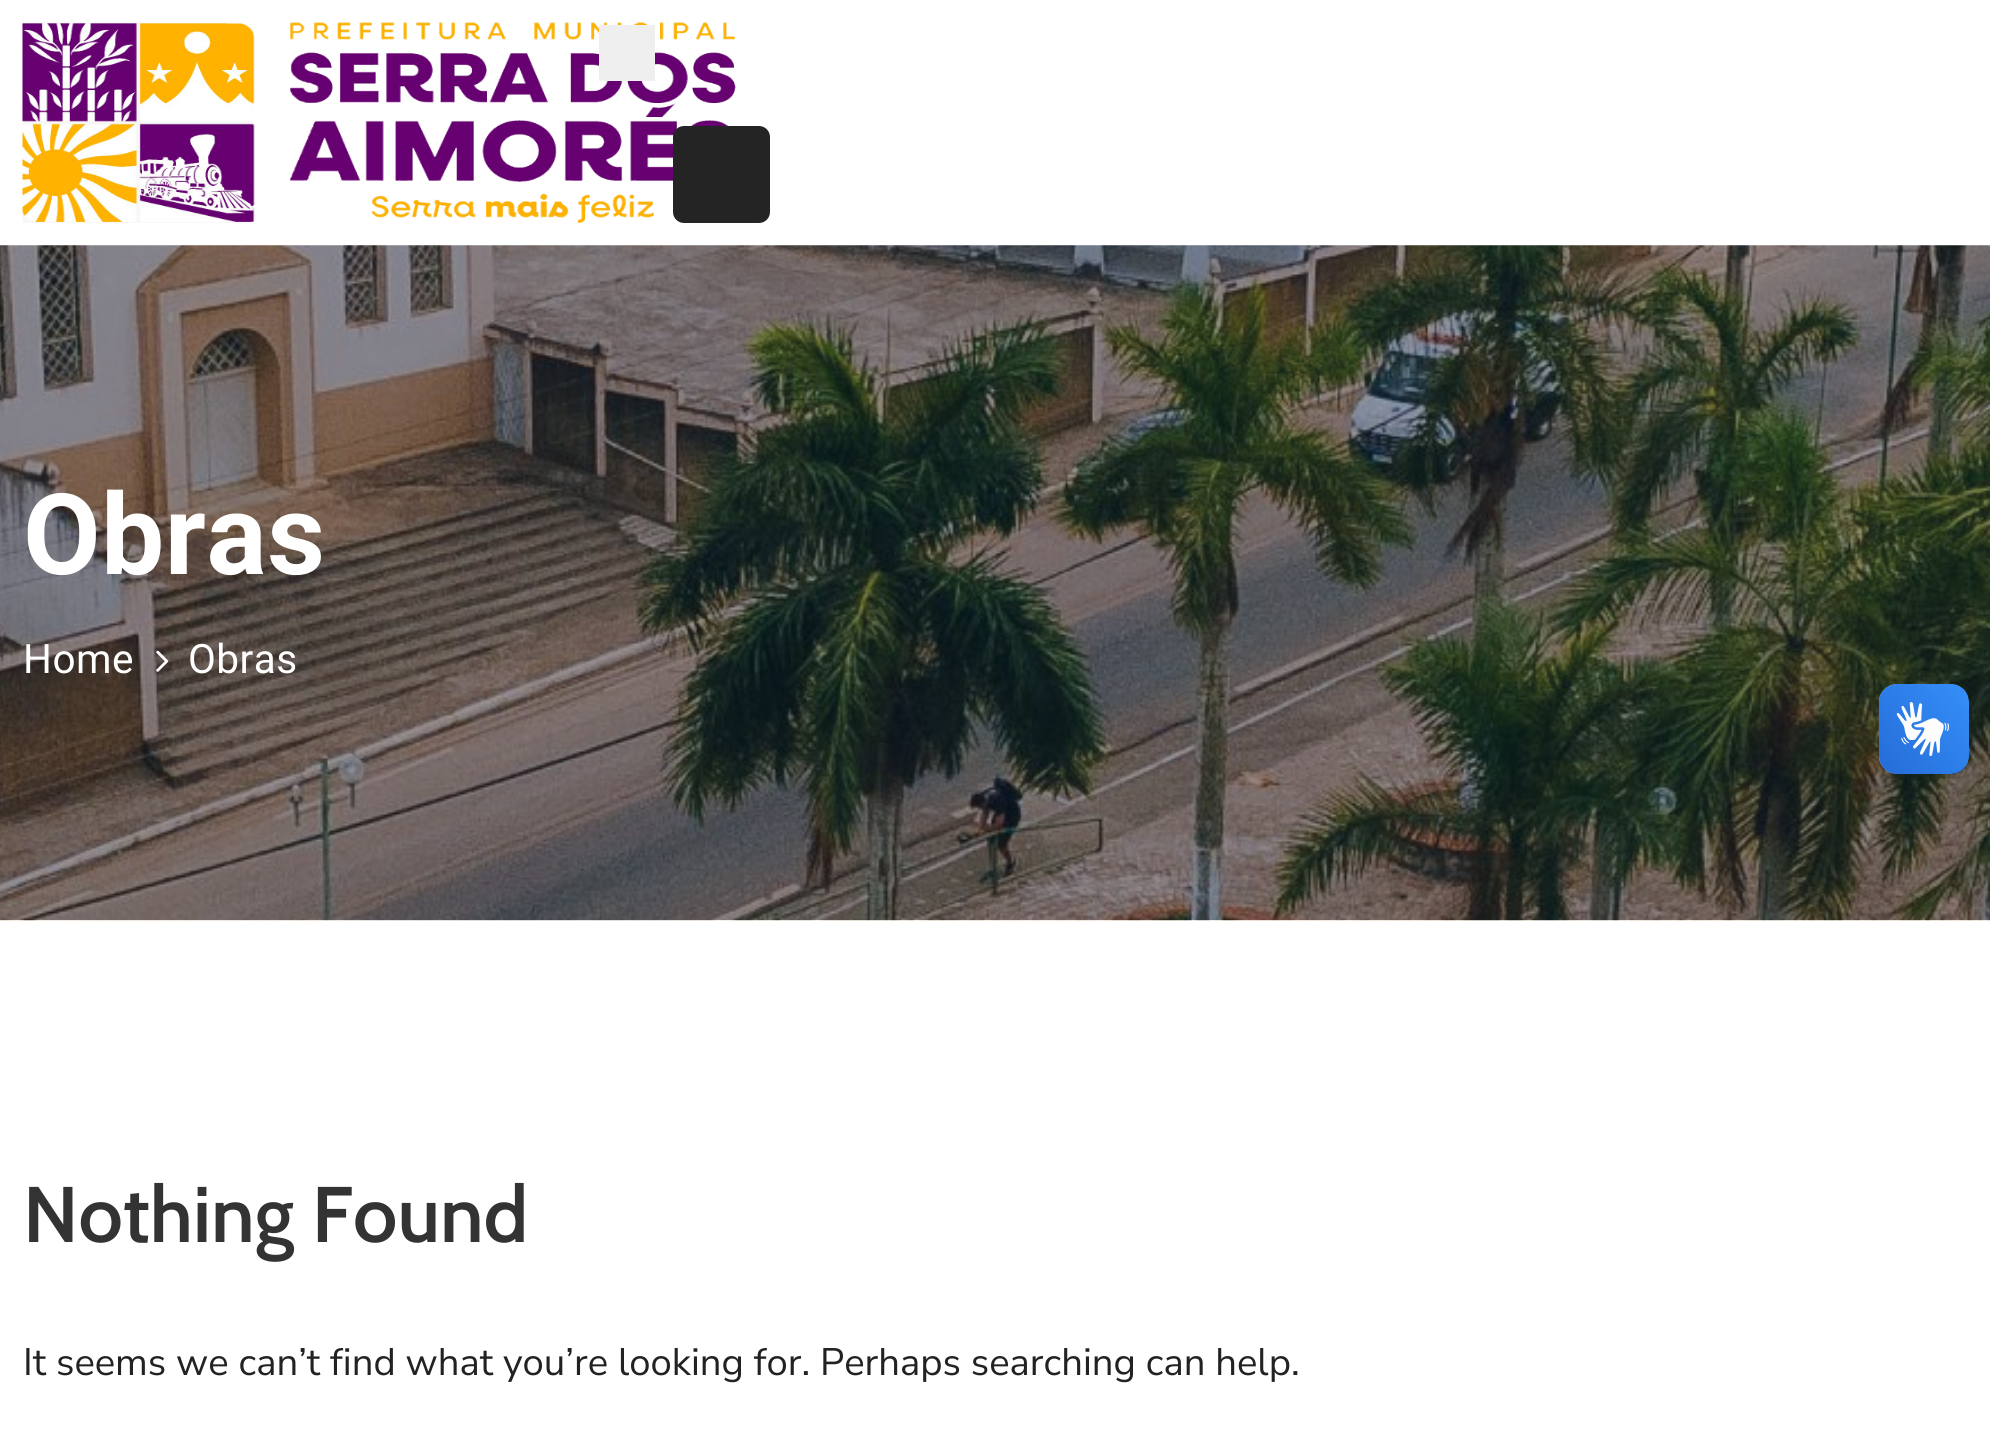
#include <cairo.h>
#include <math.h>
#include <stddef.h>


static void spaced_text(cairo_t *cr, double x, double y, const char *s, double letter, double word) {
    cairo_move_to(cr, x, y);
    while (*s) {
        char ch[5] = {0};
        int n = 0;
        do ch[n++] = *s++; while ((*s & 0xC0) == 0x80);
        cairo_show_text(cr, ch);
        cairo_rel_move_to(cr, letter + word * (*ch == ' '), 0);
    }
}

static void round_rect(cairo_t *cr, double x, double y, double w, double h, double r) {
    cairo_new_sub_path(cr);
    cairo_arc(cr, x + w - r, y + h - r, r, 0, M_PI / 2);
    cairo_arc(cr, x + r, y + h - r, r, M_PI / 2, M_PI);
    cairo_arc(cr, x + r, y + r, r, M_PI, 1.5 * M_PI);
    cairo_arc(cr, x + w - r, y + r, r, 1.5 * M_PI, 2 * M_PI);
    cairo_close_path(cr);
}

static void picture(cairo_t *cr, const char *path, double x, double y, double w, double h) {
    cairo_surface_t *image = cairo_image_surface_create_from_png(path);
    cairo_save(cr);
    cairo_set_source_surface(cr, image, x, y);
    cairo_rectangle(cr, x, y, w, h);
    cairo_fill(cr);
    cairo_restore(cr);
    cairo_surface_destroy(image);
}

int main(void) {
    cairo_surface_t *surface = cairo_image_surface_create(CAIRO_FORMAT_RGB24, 1990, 1454);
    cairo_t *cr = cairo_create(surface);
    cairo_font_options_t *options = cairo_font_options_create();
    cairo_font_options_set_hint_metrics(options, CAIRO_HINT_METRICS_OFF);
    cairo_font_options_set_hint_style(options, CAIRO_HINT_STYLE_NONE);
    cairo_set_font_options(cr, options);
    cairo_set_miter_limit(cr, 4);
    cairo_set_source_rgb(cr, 1, 1, 1);
    cairo_paint(cr);
    picture(cr, "img1.png", 22, 22, 714, 201);
    cairo_set_source_rgb(cr, 0.937, 0.937, 0.937);
    cairo_rectangle(cr, 599, 25, 56, 56);
    cairo_fill(cr);
    cairo_set_source_rgb(cr, 0.141, 0.141, 0.141);
    round_rect(cr, 673, 126, 97, 97, 11);
    cairo_fill(cr);
    picture(cr, "img2.png", 0, 245, 1990, 676);
    cairo_select_font_face(cr, "Roboto", CAIRO_FONT_SLANT_NORMAL, CAIRO_FONT_WEIGHT_BOLD);
    cairo_set_font_size(cr, 112.5);
    cairo_set_source_rgb(cr, 1, 1, 1);
    spaced_text(cr, 23, 574, "Obras", 0.5, 0);
    cairo_select_font_face(cr, "Roboto", CAIRO_FONT_SLANT_NORMAL, CAIRO_FONT_WEIGHT_NORMAL);
    cairo_set_font_size(cr, 40.5);
    spaced_text(cr, 23, 673, "Home", 0.5, 0);
    picture(cr, "img3.png", 156, 650, 13, 22);
    spaced_text(cr, 188, 673, "Obras", 0.5, 0);
    picture(cr, "img4.png", 1878, 684, 91, 90);
    picture(cr, "img5.png", 1879, 684, 90, 90);
    cairo_select_font_face(cr, "Cabin SemiBold", CAIRO_FONT_SLANT_NORMAL, CAIRO_FONT_WEIGHT_NORMAL);
    cairo_set_font_size(cr, 78.75);
    cairo_set_source_rgb(cr, 0.2, 0.2, 0.2);
    cairo_move_to(cr, 23, 1242);
    cairo_show_text(cr, "Nothing Found");
    cairo_select_font_face(cr, "Nunito Sans", CAIRO_FONT_SLANT_NORMAL, CAIRO_FONT_WEIGHT_NORMAL);
    cairo_set_font_size(cr, 38.25);
    cairo_set_source_rgb(cr, 0.133, 0.133, 0.133);
    cairo_move_to(cr, 23, 1375);
    cairo_show_text(cr, "It seems we can’t find what you’re looking for. Perhaps searching can help.");
    cairo_surface_write_to_png(surface, "page.png");
    cairo_font_options_destroy(options);
    cairo_destroy(cr);
    cairo_surface_destroy(surface);
    return 0;
}
